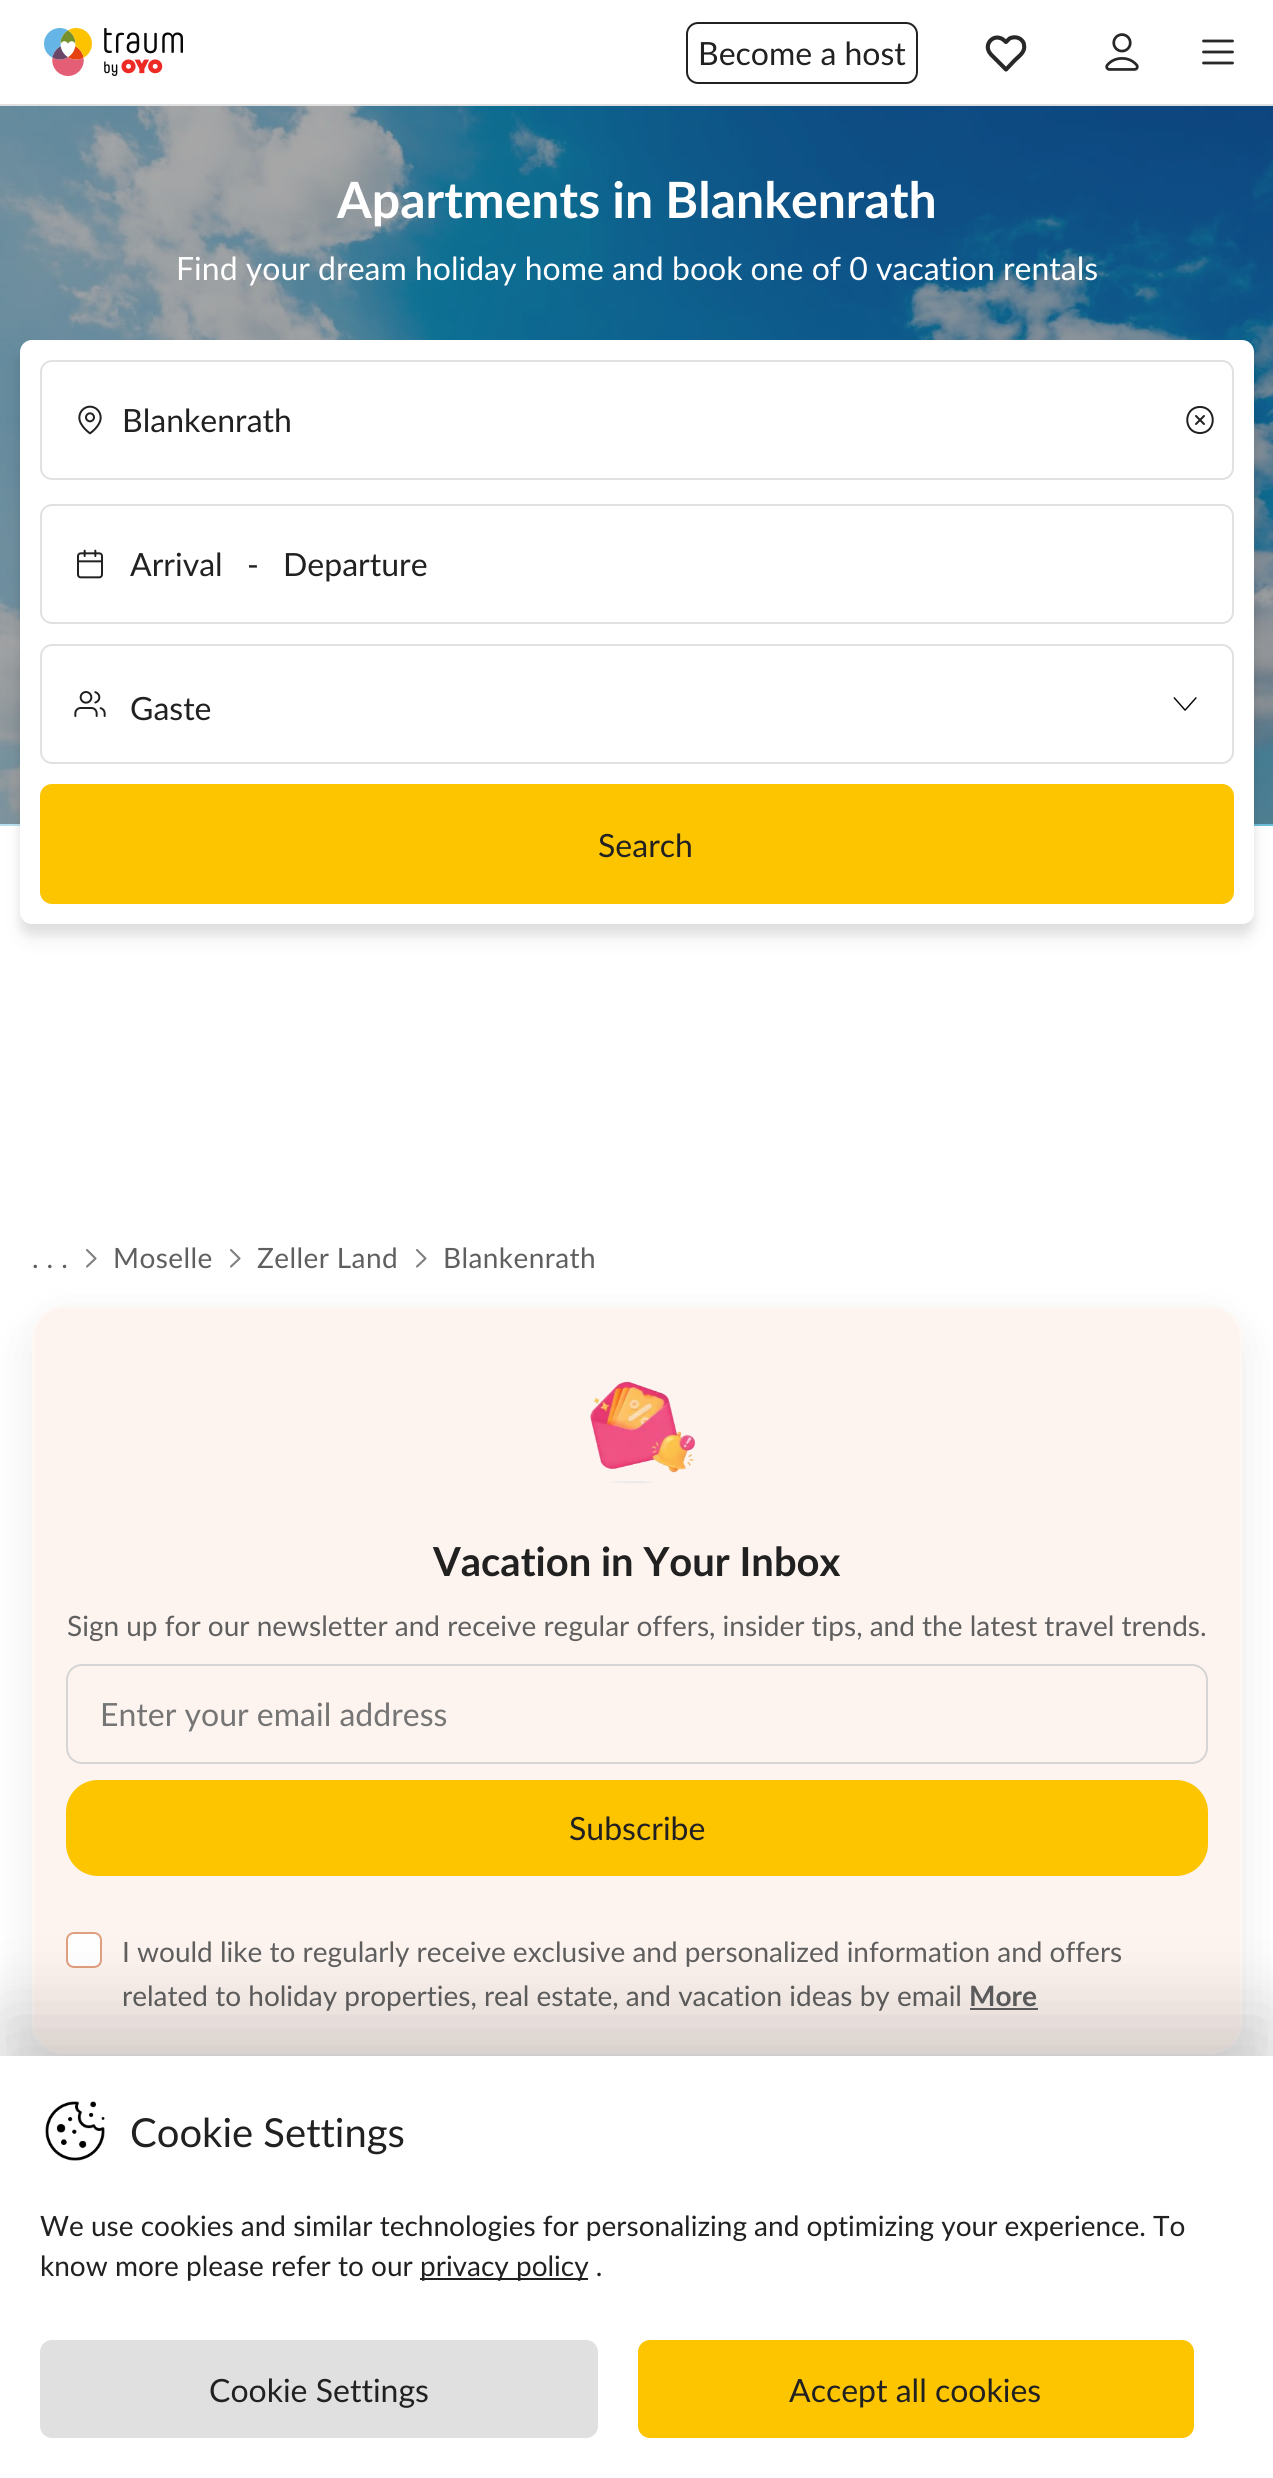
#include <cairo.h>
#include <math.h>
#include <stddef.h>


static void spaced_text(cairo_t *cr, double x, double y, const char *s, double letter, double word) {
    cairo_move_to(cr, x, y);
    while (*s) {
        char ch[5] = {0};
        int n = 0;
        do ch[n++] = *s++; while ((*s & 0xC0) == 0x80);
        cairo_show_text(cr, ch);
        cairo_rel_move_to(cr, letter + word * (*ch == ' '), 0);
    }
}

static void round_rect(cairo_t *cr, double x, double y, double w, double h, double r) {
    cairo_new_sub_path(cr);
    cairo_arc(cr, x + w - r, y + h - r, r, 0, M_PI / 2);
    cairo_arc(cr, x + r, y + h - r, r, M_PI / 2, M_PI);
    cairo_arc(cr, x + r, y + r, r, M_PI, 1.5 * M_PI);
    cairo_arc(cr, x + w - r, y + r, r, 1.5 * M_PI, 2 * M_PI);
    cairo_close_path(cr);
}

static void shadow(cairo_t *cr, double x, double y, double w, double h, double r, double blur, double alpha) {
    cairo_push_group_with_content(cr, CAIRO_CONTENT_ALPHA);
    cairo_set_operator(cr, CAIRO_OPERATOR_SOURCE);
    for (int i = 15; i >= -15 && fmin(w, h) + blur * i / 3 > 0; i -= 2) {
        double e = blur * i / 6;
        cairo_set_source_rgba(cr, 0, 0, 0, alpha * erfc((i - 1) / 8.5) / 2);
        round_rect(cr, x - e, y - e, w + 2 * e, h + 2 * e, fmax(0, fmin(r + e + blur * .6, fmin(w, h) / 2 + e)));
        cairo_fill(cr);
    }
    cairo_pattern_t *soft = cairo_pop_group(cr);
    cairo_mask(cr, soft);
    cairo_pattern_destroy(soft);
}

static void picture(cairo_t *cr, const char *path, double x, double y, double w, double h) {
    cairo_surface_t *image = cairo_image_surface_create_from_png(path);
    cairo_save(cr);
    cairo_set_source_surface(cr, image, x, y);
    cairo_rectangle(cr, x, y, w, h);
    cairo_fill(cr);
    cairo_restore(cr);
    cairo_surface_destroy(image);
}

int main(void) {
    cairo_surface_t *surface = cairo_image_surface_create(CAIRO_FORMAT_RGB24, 1273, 2478);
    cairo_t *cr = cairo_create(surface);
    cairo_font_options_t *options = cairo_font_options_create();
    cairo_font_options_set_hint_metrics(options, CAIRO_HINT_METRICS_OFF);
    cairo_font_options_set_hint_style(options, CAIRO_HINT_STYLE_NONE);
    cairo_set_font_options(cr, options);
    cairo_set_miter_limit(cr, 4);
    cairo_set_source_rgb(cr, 1, 1, 1);
    cairo_paint(cr);
    cairo_set_source_rgb(cr, 0.878, 0.878, 0.878);
    cairo_rectangle(cr, 0, 104, 1273, 2);
    cairo_fill(cr);
    picture(cr, "img1.png", 44, 28, 139, 48);
    round_rect(cr, 687, 23, 230, 60, 11);
    cairo_set_source_rgb(cr, 0.129, 0.129, 0.129);
    cairo_stroke(cr);
    cairo_select_font_face(cr, "Lato", CAIRO_FONT_SLANT_NORMAL, CAIRO_FONT_WEIGHT_NORMAL);
    cairo_set_font_size(cr, 32);
    cairo_move_to(cr, 698, 65);
    cairo_show_text(cr, "Become a host");
    cairo_new_path(cr);
    cairo_move_to(cr, 1021.5, 40);
    cairo_curve_to(cr, 1018.5, 37, 1013.5, 36.5, 1009.5, 38.5);
    cairo_line_to(cr, 1006, 42);
    cairo_curve_to(cr, 1004, 40.5, 1002.5, 38.5, 1000, 38);
    cairo_curve_to(cr, 992.5, 35.5, 985.5, 43.5, 988.5, 50.5);
    cairo_curve_to(cr, 989.5, 53.5, 992.5, 56, 994.5, 58);
    cairo_line_to(cr, 1006, 69.5);
    cairo_line_to(cr, 1015, 60);
    cairo_curve_to(cr, 1019, 56, 1025.5, 52, 1024, 45);
    cairo_curve_to(cr, 1024, 43, 1023, 41.5, 1021.5, 40);
    cairo_close_path(cr);
    cairo_set_source_rgb(cr, 0.157, 0.157, 0.157);
    cairo_set_line_width(cr, 4.1);
    cairo_set_line_cap(cr, CAIRO_LINE_CAP_ROUND);
    cairo_set_line_join(cr, CAIRO_LINE_JOIN_ROUND);
    cairo_stroke(cr);
    picture(cr, "img2.png", 1105, 33, 34, 38);
    cairo_new_path(cr);
    cairo_move_to(cr, 1203.5, 41);
    cairo_line_to(cr, 1232.5, 41);
    cairo_move_to(cr, 1203.5, 52);
    cairo_line_to(cr, 1232.5, 52);
    cairo_move_to(cr, 1203.5, 63);
    cairo_line_to(cr, 1232.5, 63);
    cairo_set_line_width(cr, 2.8);
    cairo_stroke(cr);
    picture(cr, "img3.png", 0, 106, 1273, 720);
    cairo_select_font_face(cr, "Lato", CAIRO_FONT_SLANT_NORMAL, CAIRO_FONT_WEIGHT_BOLD);
    cairo_set_font_size(cr, 50);
    cairo_set_source_rgb(cr, 1, 1, 1);
    cairo_move_to(cr, 337, 218);
    cairo_show_text(cr, "Apartments in Blankenrath");
    cairo_select_font_face(cr, "Lato", CAIRO_FONT_SLANT_NORMAL, CAIRO_FONT_WEIGHT_NORMAL);
    cairo_set_font_size(cr, 32);
    cairo_move_to(cr, 176, 280);
    cairo_show_text(cr, "Find your dream holiday home and book one of 0 vacation rentals");
    cairo_set_source_rgb(cr, 0, 0, 0);
    shadow(cr, 20, 350, 1234, 584, 12, 5, 0.08);
    shadow(cr, 20, 356, 1234, 584, 12, 10, 0.06);
    cairo_set_source_rgb(cr, 1, 1, 1);
    round_rect(cr, 20, 340, 1234, 584, 12);
    cairo_fill(cr);
    round_rect(cr, 41, 361, 1192, 118, 11);
    cairo_set_source_rgb(cr, 0.882, 0.882, 0.882);
    cairo_set_line_width(cr, 2);
    cairo_set_line_cap(cr, CAIRO_LINE_CAP_BUTT);
    cairo_set_line_join(cr, CAIRO_LINE_JOIN_MITER);
    cairo_stroke(cr);
    cairo_set_source_rgb(cr, 1, 1, 1);
    cairo_new_path(cr);
    cairo_move_to(cr, 50, 362);
    cairo_line_to(cr, 1220, 362);
    cairo_curve_to(cr, 1226.5, 362, 1232, 367.5, 1232, 374);
    cairo_line_to(cr, 1232, 466);
    cairo_curve_to(cr, 1232, 472.5, 1226.5, 478, 1220, 478);
    cairo_line_to(cr, 50, 478);
    cairo_close_path(cr);
    cairo_fill(cr);
    picture(cr, "img4.png", 78, 405, 24, 30);
    cairo_set_source_rgb(cr, 0.129, 0.129, 0.129);
    cairo_move_to(cr, 122, 432);
    cairo_show_text(cr, "Blankenrath");
    cairo_new_path(cr);
    cairo_move_to(cr, 1200, 433);
    cairo_curve_to(cr, 1217, 433, 1217, 407, 1200, 407);
    cairo_curve_to(cr, 1183, 407, 1183, 433, 1200, 433);
    cairo_close_path(cr);
    cairo_move_to(cr, 1204, 416);
    cairo_line_to(cr, 1196, 424);
    cairo_move_to(cr, 1196, 416);
    cairo_line_to(cr, 1204, 424);
    cairo_set_line_cap(cr, CAIRO_LINE_CAP_ROUND);
    cairo_set_line_join(cr, CAIRO_LINE_JOIN_ROUND);
    cairo_stroke(cr);
    round_rect(cr, 41, 505, 1192, 118, 11);
    cairo_set_source_rgb(cr, 0.882, 0.882, 0.882);
    cairo_set_line_cap(cr, CAIRO_LINE_CAP_BUTT);
    cairo_set_line_join(cr, CAIRO_LINE_JOIN_MITER);
    cairo_stroke(cr);
    picture(cr, "img5.png", 77, 549, 26, 30);
    cairo_set_source_rgb(cr, 0.129, 0.129, 0.129);
    cairo_move_to(cr, 130, 576);
    cairo_show_text(cr, "Arrival");
    cairo_move_to(cr, 247, 576);
    cairo_show_text(cr, "-");
    cairo_move_to(cr, 283, 576);
    cairo_show_text(cr, "Departure");
    round_rect(cr, 41, 645, 1192, 118, 11);
    cairo_set_source_rgb(cr, 0.882, 0.882, 0.882);
    cairo_stroke(cr);
    picture(cr, "img6.png", 74, 691, 32, 26);
    cairo_set_source_rgb(cr, 0.129, 0.129, 0.129);
    cairo_move_to(cr, 130, 720);
    cairo_show_text(cr, "Gaste");
    picture(cr, "img7.png", 1173, 697, 24, 14);
    cairo_set_source_rgb(cr, 0.992, 0.769, 0);
    round_rect(cr, 40, 784, 1194, 120, 12);
    cairo_fill(cr);
    cairo_set_source_rgb(cr, 0.129, 0.129, 0.129);
    cairo_move_to(cr, 598, 857);
    cairo_show_text(cr, "Search");
    cairo_set_font_size(cr, 28);
    cairo_set_source_rgb(cr, 0.373, 0.373, 0.373);
    spaced_text(cr, 32, 1268, ". . .", 0.4, 0);
    cairo_new_path(cr);
    cairo_move_to(cr, 87, 1266.5);
    cairo_line_to(cr, 95.5, 1258.5);
    cairo_line_to(cr, 87, 1250);
    cairo_set_source_rgb(cr, 0.502, 0.502, 0.502);
    cairo_set_line_width(cr, 2.1);
    cairo_set_line_cap(cr, CAIRO_LINE_CAP_ROUND);
    cairo_set_line_join(cr, CAIRO_LINE_JOIN_ROUND);
    cairo_stroke(cr);
    cairo_set_source_rgb(cr, 0.373, 0.373, 0.373);
    spaced_text(cr, 113, 1268, "Moselle", 0.4, 0);
    cairo_new_path(cr);
    cairo_move_to(cr, 231, 1266.5);
    cairo_line_to(cr, 239.5, 1258.5);
    cairo_line_to(cr, 231, 1250);
    cairo_set_source_rgb(cr, 0.502, 0.502, 0.502);
    cairo_stroke(cr);
    cairo_set_source_rgb(cr, 0.373, 0.373, 0.373);
    spaced_text(cr, 257, 1268, "Zeller Land", 0.4, 0);
    cairo_new_path(cr);
    cairo_move_to(cr, 417, 1266.5);
    cairo_line_to(cr, 425.5, 1258.5);
    cairo_line_to(cr, 417, 1250);
    cairo_set_source_rgb(cr, 0.502, 0.502, 0.502);
    cairo_stroke(cr);
    cairo_set_source_rgb(cr, 0.373, 0.373, 0.373);
    spaced_text(cr, 443, 1268, "Blankenrath", 0.4, 0);
    cairo_set_source_rgb(cr, 0, 0, 0);
    shadow(cr, 32, 1322, 1210, 748, 32, 24, 0.08);
    cairo_set_source_rgb(cr, 0.996, 0.957, 0.937);
    round_rect(cr, 32, 1306, 1210, 748, 32);
    cairo_fill(cr);
    round_rect(cr, 33, 1307, 1208, 746, 31);
    cairo_set_source_rgba(cr, 1, 1, 1, 0.4);
    cairo_set_line_width(cr, 2);
    cairo_set_line_cap(cr, CAIRO_LINE_CAP_BUTT);
    cairo_set_line_join(cr, CAIRO_LINE_JOIN_MITER);
    cairo_stroke(cr);
    picture(cr, "img8.png", 590, 1381, 106, 103);
    cairo_select_font_face(cr, "Lato", CAIRO_FONT_SLANT_NORMAL, CAIRO_FONT_WEIGHT_BOLD);
    cairo_set_font_size(cr, 40);
    cairo_set_source_rgb(cr, 0.129, 0.129, 0.129);
    cairo_move_to(cr, 433, 1576);
    cairo_show_text(cr, "Vacation in Your Inbox");
    cairo_select_font_face(cr, "Lato", CAIRO_FONT_SLANT_NORMAL, CAIRO_FONT_WEIGHT_NORMAL);
    cairo_set_font_size(cr, 28);
    cairo_set_source_rgb(cr, 0.373, 0.373, 0.373);
    cairo_move_to(cr, 67, 1636);
    cairo_show_text(cr, "Sign up for our newsletter and receive regular offers, insider tips, and the latest travel trends.");
    round_rect(cr, 67, 1665, 1140, 98, 15);
    cairo_set_source_rgb(cr, 0.835, 0.835, 0.835);
    cairo_stroke(cr);
    cairo_set_font_size(cr, 32);
    cairo_set_source_rgb(cr, 0.459, 0.459, 0.459);
    cairo_move_to(cr, 100, 1726);
    cairo_show_text(cr, "Enter your email address");
    cairo_set_source_rgb(cr, 0.992, 0.769, 0);
    round_rect(cr, 66, 1780, 1142, 96, 32);
    cairo_fill(cr);
    cairo_set_source_rgb(cr, 0.129, 0.129, 0.129);
    cairo_move_to(cr, 569, 1840);
    cairo_show_text(cr, "Subscribe");
    cairo_set_source_rgb(cr, 1, 1, 1);
    round_rect(cr, 67, 1933, 34, 34, 7);
    cairo_fill_preserve(cr);
    cairo_set_source_rgb(cr, 0.878, 0.627, 0.502);
    cairo_stroke(cr);
    cairo_set_font_size(cr, 28);
    cairo_set_source_rgb(cr, 0.373, 0.373, 0.373);
    cairo_move_to(cr, 122, 1962);
    cairo_show_text(cr, "I would like to regularly receive exclusive and personalized information and offers");
    cairo_move_to(cr, 122, 2006);
    cairo_show_text(cr, "related to holiday properties, real estate, and vacation ideas by email");
    cairo_select_font_face(cr, "Lato", CAIRO_FONT_SLANT_NORMAL, CAIRO_FONT_WEIGHT_BOLD);
    cairo_move_to(cr, 969, 2006);
    cairo_show_text(cr, "More");
    cairo_rectangle(cr, 970, 2008, 68, 2);
    cairo_fill(cr);
    cairo_set_source_rgb(cr, 0, 0, 0);
    shadow(cr, 0, 2038, 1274, 422, 0, 46, 0.1);
    shadow(cr, 0, 2008, 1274, 422, 0, 38, 0.1);
    cairo_set_source_rgb(cr, 1, 1, 1);
    cairo_rectangle(cr, 0, 2056, 1273, 422);
    cairo_fill(cr);
    picture(cr, "img9.png", 45, 2101, 60, 60);
    cairo_select_font_face(cr, "Lato", CAIRO_FONT_SLANT_NORMAL, CAIRO_FONT_WEIGHT_NORMAL);
    cairo_set_font_size(cr, 40);
    cairo_set_source_rgb(cr, 0.129, 0.129, 0.129);
    cairo_move_to(cr, 130, 2147);
    cairo_show_text(cr, "Cookie Settings");
    cairo_set_font_size(cr, 28);
    cairo_move_to(cr, 40, 2236);
    cairo_show_text(cr, "We use cookies and similar technologies for personalizing and optimizing your experience. To");
    cairo_move_to(cr, 40, 2276);
    cairo_show_text(cr, "know more please refer to our");
    cairo_rectangle(cr, 420, 2278, 168, 2);
    cairo_fill(cr);
    cairo_move_to(cr, 420, 2276);
    cairo_show_text(cr, "privacy policy .");
    cairo_set_source_rgb(cr, 0.878, 0.878, 0.878);
    round_rect(cr, 40, 2340, 558, 98, 12);
    cairo_fill(cr);
    cairo_set_font_size(cr, 32);
    cairo_set_source_rgb(cr, 0.129, 0.129, 0.129);
    cairo_move_to(cr, 209, 2402);
    cairo_show_text(cr, "Cookie Settings");
    cairo_set_source_rgb(cr, 0.992, 0.769, 0);
    round_rect(cr, 638, 2340, 556, 98, 12);
    cairo_fill(cr);
    cairo_set_source_rgb(cr, 0.129, 0.129, 0.129);
    cairo_move_to(cr, 789, 2402);
    cairo_show_text(cr, "Accept all cookies");
    cairo_surface_write_to_png(surface, "page.png");
    cairo_font_options_destroy(options);
    cairo_destroy(cr);
    cairo_surface_destroy(surface);
    return 0;
}
